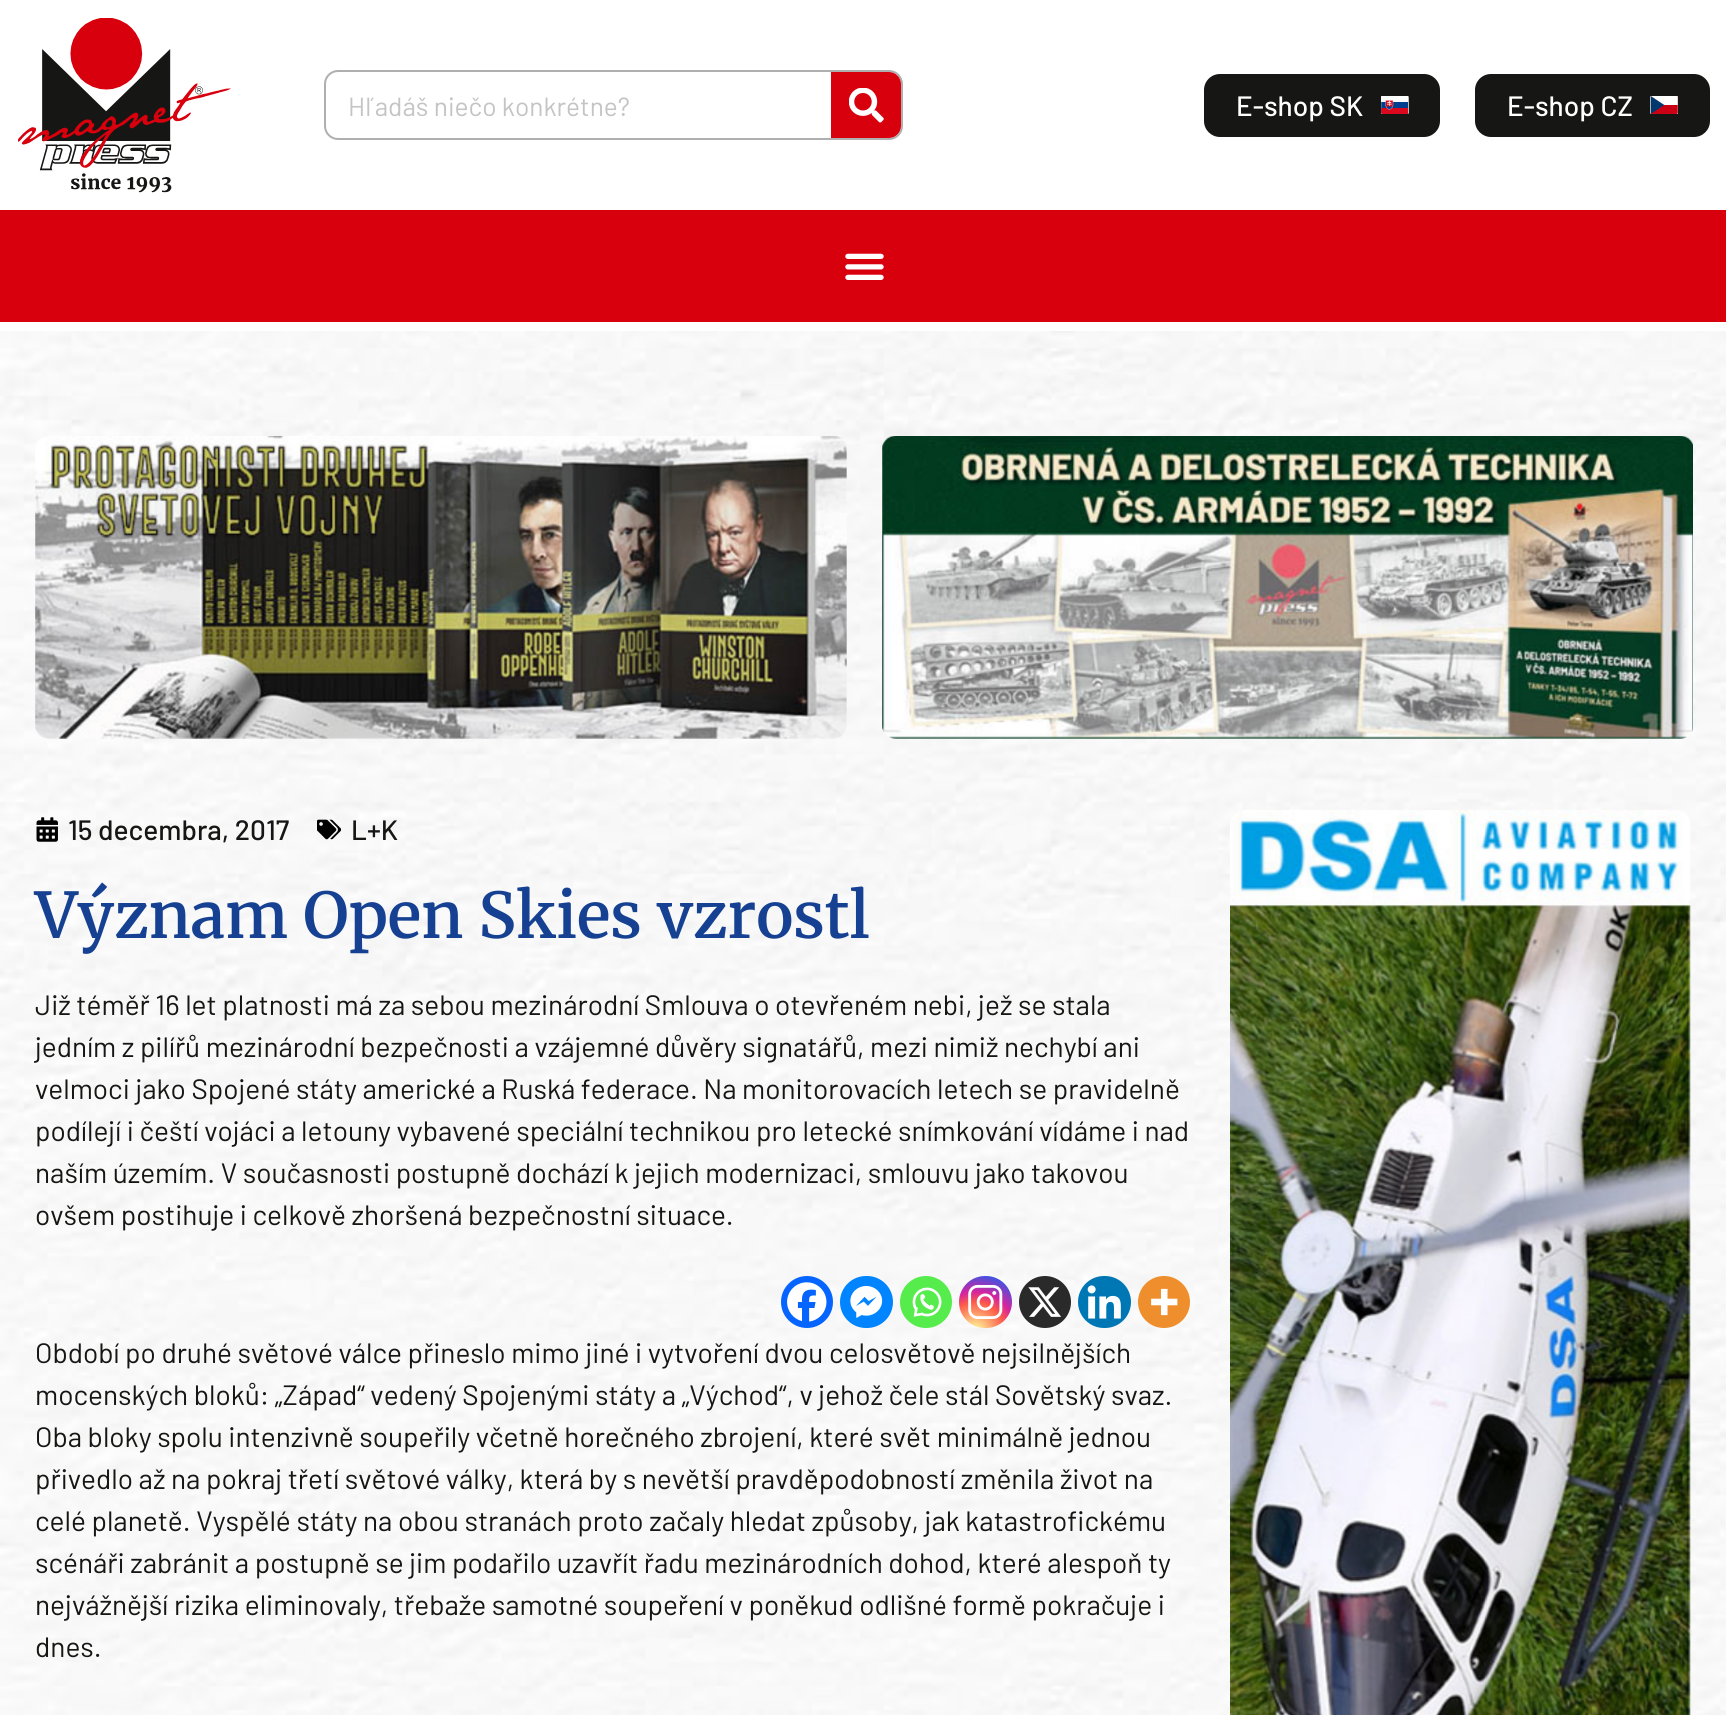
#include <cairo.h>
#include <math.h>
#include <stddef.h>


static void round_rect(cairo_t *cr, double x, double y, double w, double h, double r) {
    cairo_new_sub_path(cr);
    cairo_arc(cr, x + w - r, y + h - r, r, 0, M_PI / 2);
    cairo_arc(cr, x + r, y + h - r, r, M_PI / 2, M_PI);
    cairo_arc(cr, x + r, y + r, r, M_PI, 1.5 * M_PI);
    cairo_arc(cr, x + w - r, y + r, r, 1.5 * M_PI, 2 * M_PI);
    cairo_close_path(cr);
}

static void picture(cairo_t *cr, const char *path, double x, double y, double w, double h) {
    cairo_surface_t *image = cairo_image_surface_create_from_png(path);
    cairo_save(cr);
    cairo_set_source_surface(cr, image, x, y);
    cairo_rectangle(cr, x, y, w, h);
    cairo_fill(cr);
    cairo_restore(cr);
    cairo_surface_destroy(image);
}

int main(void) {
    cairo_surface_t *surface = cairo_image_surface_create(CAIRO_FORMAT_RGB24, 1726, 1715);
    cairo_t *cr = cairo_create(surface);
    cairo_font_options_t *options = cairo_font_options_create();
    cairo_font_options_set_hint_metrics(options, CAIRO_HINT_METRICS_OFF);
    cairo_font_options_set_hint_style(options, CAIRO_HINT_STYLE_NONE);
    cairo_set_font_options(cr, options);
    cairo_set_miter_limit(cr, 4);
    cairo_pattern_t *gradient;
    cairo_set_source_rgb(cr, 1, 1, 1);
    cairo_paint(cr);
    picture(cr, "img1.png", 18, 18, 213, 175);
    round_rect(cr, 325, 71, 577, 68, 13);
    cairo_set_source_rgb(cr, 0.686, 0.686, 0.686);
    cairo_stroke(cr);
    cairo_select_font_face(cr, "Barlow", CAIRO_FONT_SLANT_NORMAL, CAIRO_FONT_WEIGHT_NORMAL);
    cairo_set_font_size(cr, 26.25);
    cairo_set_source_rgb(cr, 0.769, 0.769, 0.769);
    cairo_move_to(cr, 348, 116);
    cairo_show_text(cr, "Hľadáš niečo konkrétne?");
    cairo_set_source_rgb(cr, 0.851, 0, 0.051);
    cairo_new_path(cr);
    cairo_move_to(cr, 831, 72);
    cairo_line_to(cr, 889, 72);
    cairo_curve_to(cr, 895.5, 72, 901, 77.5, 901, 84);
    cairo_line_to(cr, 901, 126);
    cairo_curve_to(cr, 901, 132.5, 895.5, 138, 889, 138);
    cairo_line_to(cr, 831, 138);
    cairo_close_path(cr);
    cairo_fill(cr);
    picture(cr, "img2.png", 849, 88, 35, 35);
    cairo_set_source_rgb(cr, 0.086, 0.086, 0.082);
    round_rect(cr, 1204, 74, 236, 63, 16);
    cairo_fill(cr);
    cairo_select_font_face(cr, "Barlow Medium", CAIRO_FONT_SLANT_NORMAL, CAIRO_FONT_WEIGHT_NORMAL);
    cairo_set_font_size(cr, 28);
    cairo_set_source_rgb(cr, 1, 1, 1);
    cairo_move_to(cr, 1236, 116);
    cairo_show_text(cr, "E-shop SK");
    picture(cr, "img3.png", 1381, 96, 28, 18);
    cairo_set_source_rgb(cr, 0.086, 0.086, 0.082);
    round_rect(cr, 1475, 74, 235, 63, 16);
    cairo_fill(cr);
    cairo_set_source_rgb(cr, 1, 1, 1);
    cairo_move_to(cr, 1507, 116);
    cairo_show_text(cr, "E-shop CZ");
    picture(cr, "img4.png", 1650, 96, 28, 18);
    cairo_set_source_rgb(cr, 0.851, 0, 0.051);
    cairo_rectangle(cr, 0, 210, 1726, 112);
    cairo_fill(cr);
    picture(cr, "img5.png", 845, 253, 39, 27);
    picture(cr, "img6.png", 0, 331, 1726, 1384);
    picture(cr, "img7.png", 35, 436, 812, 303);
    picture(cr, "img8.png", 882, 436, 811, 303);
    picture(cr, "img9.png", 36, 817, 22, 25);
    cairo_set_source_rgb(cr, 0.086, 0.086, 0.082);
    cairo_move_to(cr, 68, 840);
    cairo_show_text(cr, "15 decembra, 2017");
    picture(cr, "img10.png", 317, 819, 24, 21);
    cairo_move_to(cr, 351, 840);
    cairo_show_text(cr, "L+K");
    cairo_select_font_face(cr, "Merriweather SemiBold", CAIRO_FONT_SLANT_NORMAL, CAIRO_FONT_WEIGHT_NORMAL);
    cairo_set_font_size(cr, 63);
    cairo_set_source_rgb(cr, 0.086, 0.255, 0.576);
    cairo_move_to(cr, 35, 938);
    cairo_show_text(cr, "Význam Open Skies vzrostl");
    cairo_select_font_face(cr, "Barlow", CAIRO_FONT_SLANT_NORMAL, CAIRO_FONT_WEIGHT_NORMAL);
    cairo_set_font_size(cr, 28);
    cairo_set_source_rgb(cr, 0.086, 0.086, 0.082);
    cairo_move_to(cr, 35, 1015);
    cairo_show_text(cr, "Již téměř 16 let platnosti má za sebou mezinárodní Smlouva o otevřeném nebi, jež se stala");
    cairo_move_to(cr, 35, 1057);
    cairo_show_text(cr, "jedním z pilířů mezinárodní bezpečnosti a vzájemné důvěry signatářů, mezi nimiž nechybí ani");
    cairo_move_to(cr, 35, 1099);
    cairo_show_text(cr, "velmoci jako Spojené státy americké a Ruská federace. Na monitorovacích letech se pravidelně");
    cairo_move_to(cr, 35, 1141);
    cairo_show_text(cr, "podílejí i čeští vojáci a letouny vybavené speciální technikou pro letecké snímkování vídáme i nad");
    cairo_move_to(cr, 35, 1183);
    cairo_show_text(cr, "naším územím. V současnosti postupně dochází k jejich modernizaci, smlouvu jako takovou");
    cairo_move_to(cr, 35, 1225);
    cairo_show_text(cr, "ovšem postihuje i celkově zhoršená bezpečnostní situace.");
    cairo_set_source_rgb(cr, 0.027, 0.396, 0.996);
    cairo_new_path(cr);
    cairo_arc(cr, 807, 1302, 26, 0, 2 * M_PI);
    cairo_fill(cr);
    picture(cr, "img11.png", 787, 1282, 40, 40);
    cairo_set_source_rgb(cr, 0, 0.518, 1);
    round_rect(cr, 840, 1276, 53, 52, 26);
    cairo_fill(cr);
    picture(cr, "img12.png", 850, 1285, 33, 33);
    cairo_set_source_rgb(cr, 0.333, 0.922, 0.298);
    cairo_arc(cr, 926, 1302, 26, 0, 2 * M_PI);
    cairo_fill(cr);
    picture(cr, "img13.png", 912, 1287, 30, 30);
    gradient = cairo_pattern_create_radial(975, 1332, 0, 975, 1332, 67);
    cairo_pattern_add_color_stop_rgba(gradient, 0, 0.992, 0.957, 0.592, 1);
    cairo_pattern_add_color_stop_rgba(gradient, 0.05, 0.992, 0.957, 0.592, 1);
    cairo_pattern_add_color_stop_rgba(gradient, 0.45, 0.992, 0.349, 0.286, 1);
    cairo_pattern_add_color_stop_rgba(gradient, 0.6, 0.839, 0.141, 0.624, 1);
    cairo_pattern_add_color_stop_rgba(gradient, 0.9, 0.157, 0.353, 0.922, 1);
    cairo_set_source(cr, gradient);
    cairo_pattern_destroy(gradient);
    round_rect(cr, 959, 1276, 53, 52, 26);
    cairo_fill(cr);
    picture(cr, "img14.png", 968, 1285, 35, 34);
    cairo_set_source_rgb(cr, 0.165, 0.165, 0.165);
    cairo_arc(cr, 1045, 1302, 26, 0, 2 * M_PI);
    cairo_fill(cr);
    picture(cr, "img15.png", 1028, 1287, 33, 30);
    cairo_set_source_rgb(cr, 0, 0.467, 0.71);
    round_rect(cr, 1078, 1276, 53, 52, 26);
    cairo_fill(cr);
    picture(cr, "img16.png", 1087, 1285, 34, 34);
    cairo_set_source_rgb(cr, 0.933, 0.557, 0.176);
    cairo_arc(cr, 1164, 1302, 26, 0, 2 * M_PI);
    cairo_fill(cr);
    picture(cr, "img17.png", 1151, 1288, 27, 28);
    cairo_set_source_rgb(cr, 0.086, 0.086, 0.082);
    cairo_move_to(cr, 35, 1363);
    cairo_show_text(cr, "Období po druhé světové válce přineslo mimo jiné i vytvoření dvou celosvětově nejsilnějších");
    cairo_move_to(cr, 35, 1405);
    cairo_show_text(cr, "mocenských bloků: „Západ“ vedený Spojenými státy a „Východ“, v jehož čele stál Sovětský svaz.");
    cairo_move_to(cr, 35, 1447);
    cairo_show_text(cr, "Oba bloky spolu intenzivně soupeřily včetně horečného zbrojení, které svět minimálně jednou");
    cairo_move_to(cr, 35, 1489);
    cairo_show_text(cr, "přivedlo až na pokraj třetí světové války, která by s nevětší pravděpodobností změnila život na");
    cairo_move_to(cr, 35, 1531);
    cairo_show_text(cr, "celé planetě. Vyspělé státy na obou stranách proto začaly hledat způsoby, jak katastrofickému");
    cairo_move_to(cr, 35, 1573);
    cairo_show_text(cr, "scénáři zabránit a postupně se jim podařilo uzavřít řadu mezinárodních dohod, které alespoň ty");
    cairo_move_to(cr, 35, 1615);
    cairo_show_text(cr, "nejvážnější rizika eliminovaly, třebaže samotné soupeření v poněkud odlišné formě pokračuje i");
    cairo_move_to(cr, 35, 1657);
    cairo_show_text(cr, "dnes.");
    picture(cr, "img18.png", 1230, 810, 461, 905);
    cairo_surface_write_to_png(surface, "page.png");
    cairo_font_options_destroy(options);
    cairo_destroy(cr);
    cairo_surface_destroy(surface);
    return 0;
}
